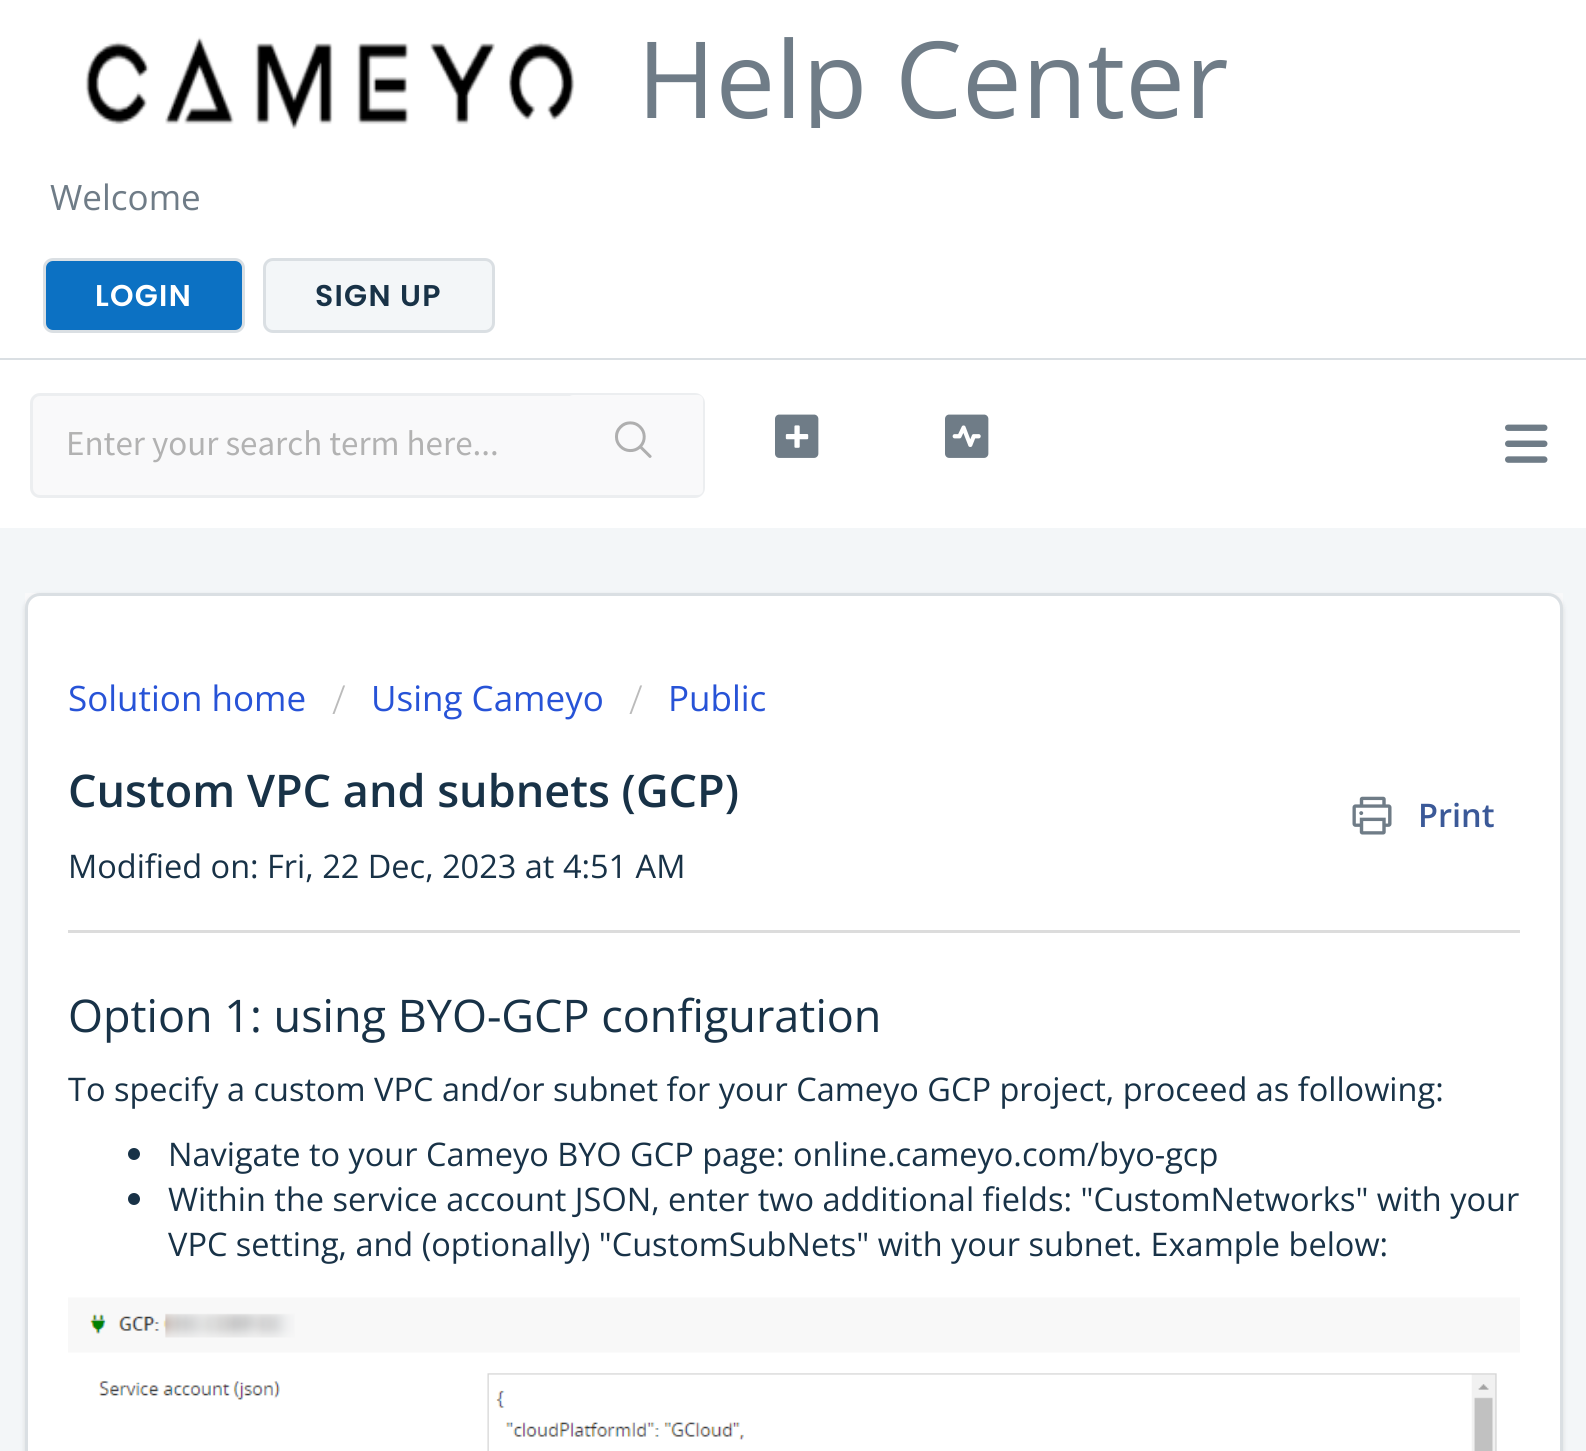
#include <cairo.h>
#include <math.h>
#include <stddef.h>


static void spaced_text(cairo_t *cr, double x, double y, const char *s, double letter, double word) {
    cairo_move_to(cr, x, y);
    while (*s) {
        char ch[5] = {0};
        int n = 0;
        do ch[n++] = *s++; while ((*s & 0xC0) == 0x80);
        cairo_show_text(cr, ch);
        cairo_rel_move_to(cr, letter + word * (*ch == ' '), 0);
    }
}

static void round_rect(cairo_t *cr, double x, double y, double w, double h, double r) {
    cairo_new_sub_path(cr);
    cairo_arc(cr, x + w - r, y + h - r, r, 0, M_PI / 2);
    cairo_arc(cr, x + r, y + h - r, r, M_PI / 2, M_PI);
    cairo_arc(cr, x + r, y + r, r, M_PI, 1.5 * M_PI);
    cairo_arc(cr, x + w - r, y + r, r, 1.5 * M_PI, 2 * M_PI);
    cairo_close_path(cr);
}

static void shadow(cairo_t *cr, double x, double y, double w, double h, double r, double blur, double alpha) {
    cairo_push_group_with_content(cr, CAIRO_CONTENT_ALPHA);
    cairo_set_operator(cr, CAIRO_OPERATOR_SOURCE);
    for (int i = 15; i >= -15 && fmin(w, h) + blur * i / 3 > 0; i -= 2) {
        double e = blur * i / 6;
        cairo_set_source_rgba(cr, 0, 0, 0, alpha * erfc((i - 1) / 8.5) / 2);
        round_rect(cr, x - e, y - e, w + 2 * e, h + 2 * e, fmax(0, fmin(r + e + blur * .6, fmin(w, h) / 2 + e)));
        cairo_fill(cr);
    }
    cairo_pattern_t *soft = cairo_pop_group(cr);
    cairo_mask(cr, soft);
    cairo_pattern_destroy(soft);
}

static void picture(cairo_t *cr, const char *path, double x, double y, double w, double h) {
    cairo_surface_t *image = cairo_image_surface_create_from_png(path);
    cairo_save(cr);
    cairo_set_source_surface(cr, image, x, y);
    cairo_rectangle(cr, x, y, w, h);
    cairo_fill(cr);
    cairo_restore(cr);
    cairo_surface_destroy(image);
}

int main(void) {
    cairo_surface_t *surface = cairo_image_surface_create(CAIRO_FORMAT_RGB24, 1586, 1451);
    cairo_t *cr = cairo_create(surface);
    cairo_font_options_t *options = cairo_font_options_create();
    cairo_font_options_set_hint_metrics(options, CAIRO_HINT_METRICS_OFF);
    cairo_font_options_set_hint_style(options, CAIRO_HINT_STYLE_NONE);
    cairo_set_font_options(cr, options);
    cairo_set_miter_limit(cr, 4);
    cairo_set_source_rgb(cr, 0.953, 0.961, 0.969);
    cairo_paint(cr);
    cairo_set_source_rgb(cr, 1, 1, 1);
    cairo_rectangle(cr, 0, 0, 1586, 358);
    cairo_fill(cr);
    cairo_set_source_rgb(cr, 0.855, 0.875, 0.89);
    cairo_rectangle(cr, 0, 358, 1586, 2);
    cairo_fill(cr);
    picture(cr, "img1.png", 85, 36, 490, 93);
    cairo_save(cr);
    cairo_rectangle(cr, 638, 25, 592, 103);
    cairo_clip(cr);
    cairo_select_font_face(cr, "Open Sans", CAIRO_FONT_SLANT_NORMAL, CAIRO_FONT_WEIGHT_NORMAL);
    cairo_set_font_size(cr, 106.5);
    cairo_set_source_rgb(cr, 0.435, 0.486, 0.529);
    cairo_move_to(cr, 637, 118);
    cairo_show_text(cr, "Help Center");
    cairo_restore(cr);
    cairo_select_font_face(cr, "Open Sans", CAIRO_FONT_SLANT_NORMAL, CAIRO_FONT_WEIGHT_NORMAL);
    cairo_set_font_size(cr, 35);
    cairo_set_source_rgb(cr, 0.435, 0.486, 0.529);
    cairo_move_to(cr, 50, 210);
    cairo_show_text(cr, "Welcome");
    cairo_set_source_rgb(cr, 0.047, 0.443, 0.765);
    round_rect(cr, 44.5, 259.5, 199, 72, 8.5);
    cairo_fill_preserve(cr);
    cairo_set_source_rgb(cr, 0.855, 0.875, 0.89);
    cairo_set_line_width(cr, 3);
    cairo_stroke(cr);
    cairo_select_font_face(cr, "Poppins SemiBold", CAIRO_FONT_SLANT_NORMAL, CAIRO_FONT_WEIGHT_NORMAL);
    cairo_set_font_size(cr, 30);
    cairo_set_source_rgb(cr, 1, 1, 1);
    spaced_text(cr, 95, 306, "LOGIN", 1.25, 0);
    cairo_set_source_rgb(cr, 0.953, 0.961, 0.969);
    round_rect(cr, 264.5, 259.5, 229, 72, 8.5);
    cairo_fill_preserve(cr);
    cairo_set_source_rgb(cr, 0.855, 0.875, 0.89);
    cairo_stroke(cr);
    cairo_set_source_rgb(cr, 0.094, 0.196, 0.278);
    spaced_text(cr, 315, 306, "SIGN UP", 1.25, 0);
    cairo_set_source_rgb(cr, 1, 1, 1);
    cairo_rectangle(cr, 0, 360, 1586, 168);
    cairo_fill(cr);
    picture(cr, "img2.png", 1505, 424, 43, 39);
    cairo_set_source_rgb(cr, 0.973, 0.976, 0.98);
    round_rect(cr, 31.5, 394.5, 672, 102, 8.5);
    cairo_fill_preserve(cr);
    cairo_set_source_rgb(cr, 0.922, 0.933, 0.941);
    cairo_stroke(cr);
    cairo_select_font_face(cr, "Source Sans Pro", CAIRO_FONT_SLANT_NORMAL, CAIRO_FONT_WEIGHT_NORMAL);
    cairo_set_font_size(cr, 35);
    cairo_set_source_rgb(cr, 0.698, 0.698, 0.698);
    cairo_move_to(cr, 66, 455);
    cairo_show_text(cr, "Enter your search term here...");
    cairo_set_source_rgb(cr, 0.973, 0.976, 0.98);
    round_rect(cr, 568, 395, 135, 100, 5);
    cairo_fill(cr);
    picture(cr, "img3.png", 615, 421, 37, 37);
    picture(cr, "img4.png", 775, 414, 44, 44);
    picture(cr, "img5.png", 945, 414, 44, 44);
    cairo_rectangle(cr, 25, 593, 1538, 15);
    cairo_fill(cr);
    cairo_set_source_rgb(cr, 0.247, 0.247, 0.267);
    shadow(cr, 25, 595, 1538, 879, 15, 2.5, 0.15);
    cairo_set_source_rgb(cr, 1, 1, 1);
    round_rect(cr, 26.5, 594.5, 1535, 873, 13.5);
    cairo_fill_preserve(cr);
    cairo_set_source_rgb(cr, 0.855, 0.875, 0.89);
    cairo_stroke(cr);
    cairo_select_font_face(cr, "Open Sans", CAIRO_FONT_SLANT_NORMAL, CAIRO_FONT_WEIGHT_NORMAL);
    cairo_set_source_rgb(cr, 0.153, 0.325, 0.843);
    cairo_move_to(cr, 68, 711);
    cairo_show_text(cr, "Solution home");
    cairo_select_font_face(cr, "Open Sans Light", CAIRO_FONT_SLANT_NORMAL, CAIRO_FONT_WEIGHT_NORMAL);
    cairo_set_font_size(cr, 40);
    cairo_set_source_rgb(cr, 0.733, 0.733, 0.733);
    cairo_move_to(cr, 332, 714);
    cairo_show_text(cr, "/");
    cairo_select_font_face(cr, "Open Sans", CAIRO_FONT_SLANT_NORMAL, CAIRO_FONT_WEIGHT_NORMAL);
    cairo_set_font_size(cr, 35);
    cairo_set_source_rgb(cr, 0.153, 0.325, 0.843);
    cairo_move_to(cr, 371, 711);
    cairo_show_text(cr, "Using Cameyo");
    cairo_select_font_face(cr, "Open Sans Light", CAIRO_FONT_SLANT_NORMAL, CAIRO_FONT_WEIGHT_NORMAL);
    cairo_set_font_size(cr, 40);
    cairo_set_source_rgb(cr, 0.733, 0.733, 0.733);
    cairo_move_to(cr, 629, 714);
    cairo_show_text(cr, "/");
    cairo_select_font_face(cr, "Open Sans", CAIRO_FONT_SLANT_NORMAL, CAIRO_FONT_WEIGHT_NORMAL);
    cairo_set_font_size(cr, 35);
    cairo_set_source_rgb(cr, 0.153, 0.325, 0.843);
    cairo_move_to(cr, 668, 711);
    cairo_show_text(cr, "Public");
    cairo_select_font_face(cr, "Open Sans SemiBold", CAIRO_FONT_SLANT_NORMAL, CAIRO_FONT_WEIGHT_NORMAL);
    cairo_set_font_size(cr, 45);
    cairo_set_source_rgb(cr, 0.094, 0.196, 0.278);
    cairo_move_to(cr, 68, 807);
    cairo_show_text(cr, "Custom VPC and subnets (GCP)");
    picture(cr, "img6.png", 1352, 796, 40, 39);
    cairo_set_font_size(cr, 32.5);
    cairo_set_source_rgb(cr, 0.231, 0.349, 0.596);
    cairo_move_to(cr, 1418, 827);
    cairo_show_text(cr, "Print");
    cairo_select_font_face(cr, "Open Sans", CAIRO_FONT_SLANT_NORMAL, CAIRO_FONT_WEIGHT_NORMAL);
    cairo_set_source_rgb(cr, 0.094, 0.196, 0.278);
    cairo_move_to(cr, 68, 878);
    cairo_show_text(cr, "Modified on: Fri, 22 Dec, 2023 at 4:51 AM");
    cairo_set_source_rgb(cr, 0.863, 0.863, 0.863);
    cairo_rectangle(cr, 68, 930, 1452, 3);
    cairo_fill(cr);
    cairo_set_font_size(cr, 45);
    cairo_set_source_rgb(cr, 0.094, 0.196, 0.278);
    cairo_move_to(cr, 68, 1032);
    cairo_show_text(cr, "Option 1: using BYO-GCP configuration");
    cairo_set_font_size(cr, 32.5);
    cairo_move_to(cr, 68, 1101);
    cairo_show_text(cr, "To specify a custom VPC and/or subnet for your Cameyo GCP project, proceed as following:");
    cairo_new_path(cr);
    cairo_arc(cr, 134, 1154, 6, 0, 2 * M_PI);
    cairo_fill(cr);
    cairo_move_to(cr, 168, 1166);
    cairo_show_text(cr, "Navigate to your Cameyo BYO GCP page: online.cameyo.com/byo-gcp");
    cairo_new_path(cr);
    cairo_arc(cr, 134, 1199, 6, 0, 2 * M_PI);
    cairo_fill(cr);
    cairo_move_to(cr, 168, 1211);
    cairo_show_text(cr, "Within the service account JSON, enter two additional fields: \"CustomNetworks\" with your");
    cairo_move_to(cr, 168, 1256);
    cairo_show_text(cr, "VPC setting, and (optionally) \"CustomSubNets\" with your subnet. Example below:");
    picture(cr, "img7.png", 68, 1297, 1452, 154);
    cairo_surface_write_to_png(surface, "page.png");
    cairo_font_options_destroy(options);
    cairo_destroy(cr);
    cairo_surface_destroy(surface);
    return 0;
}
